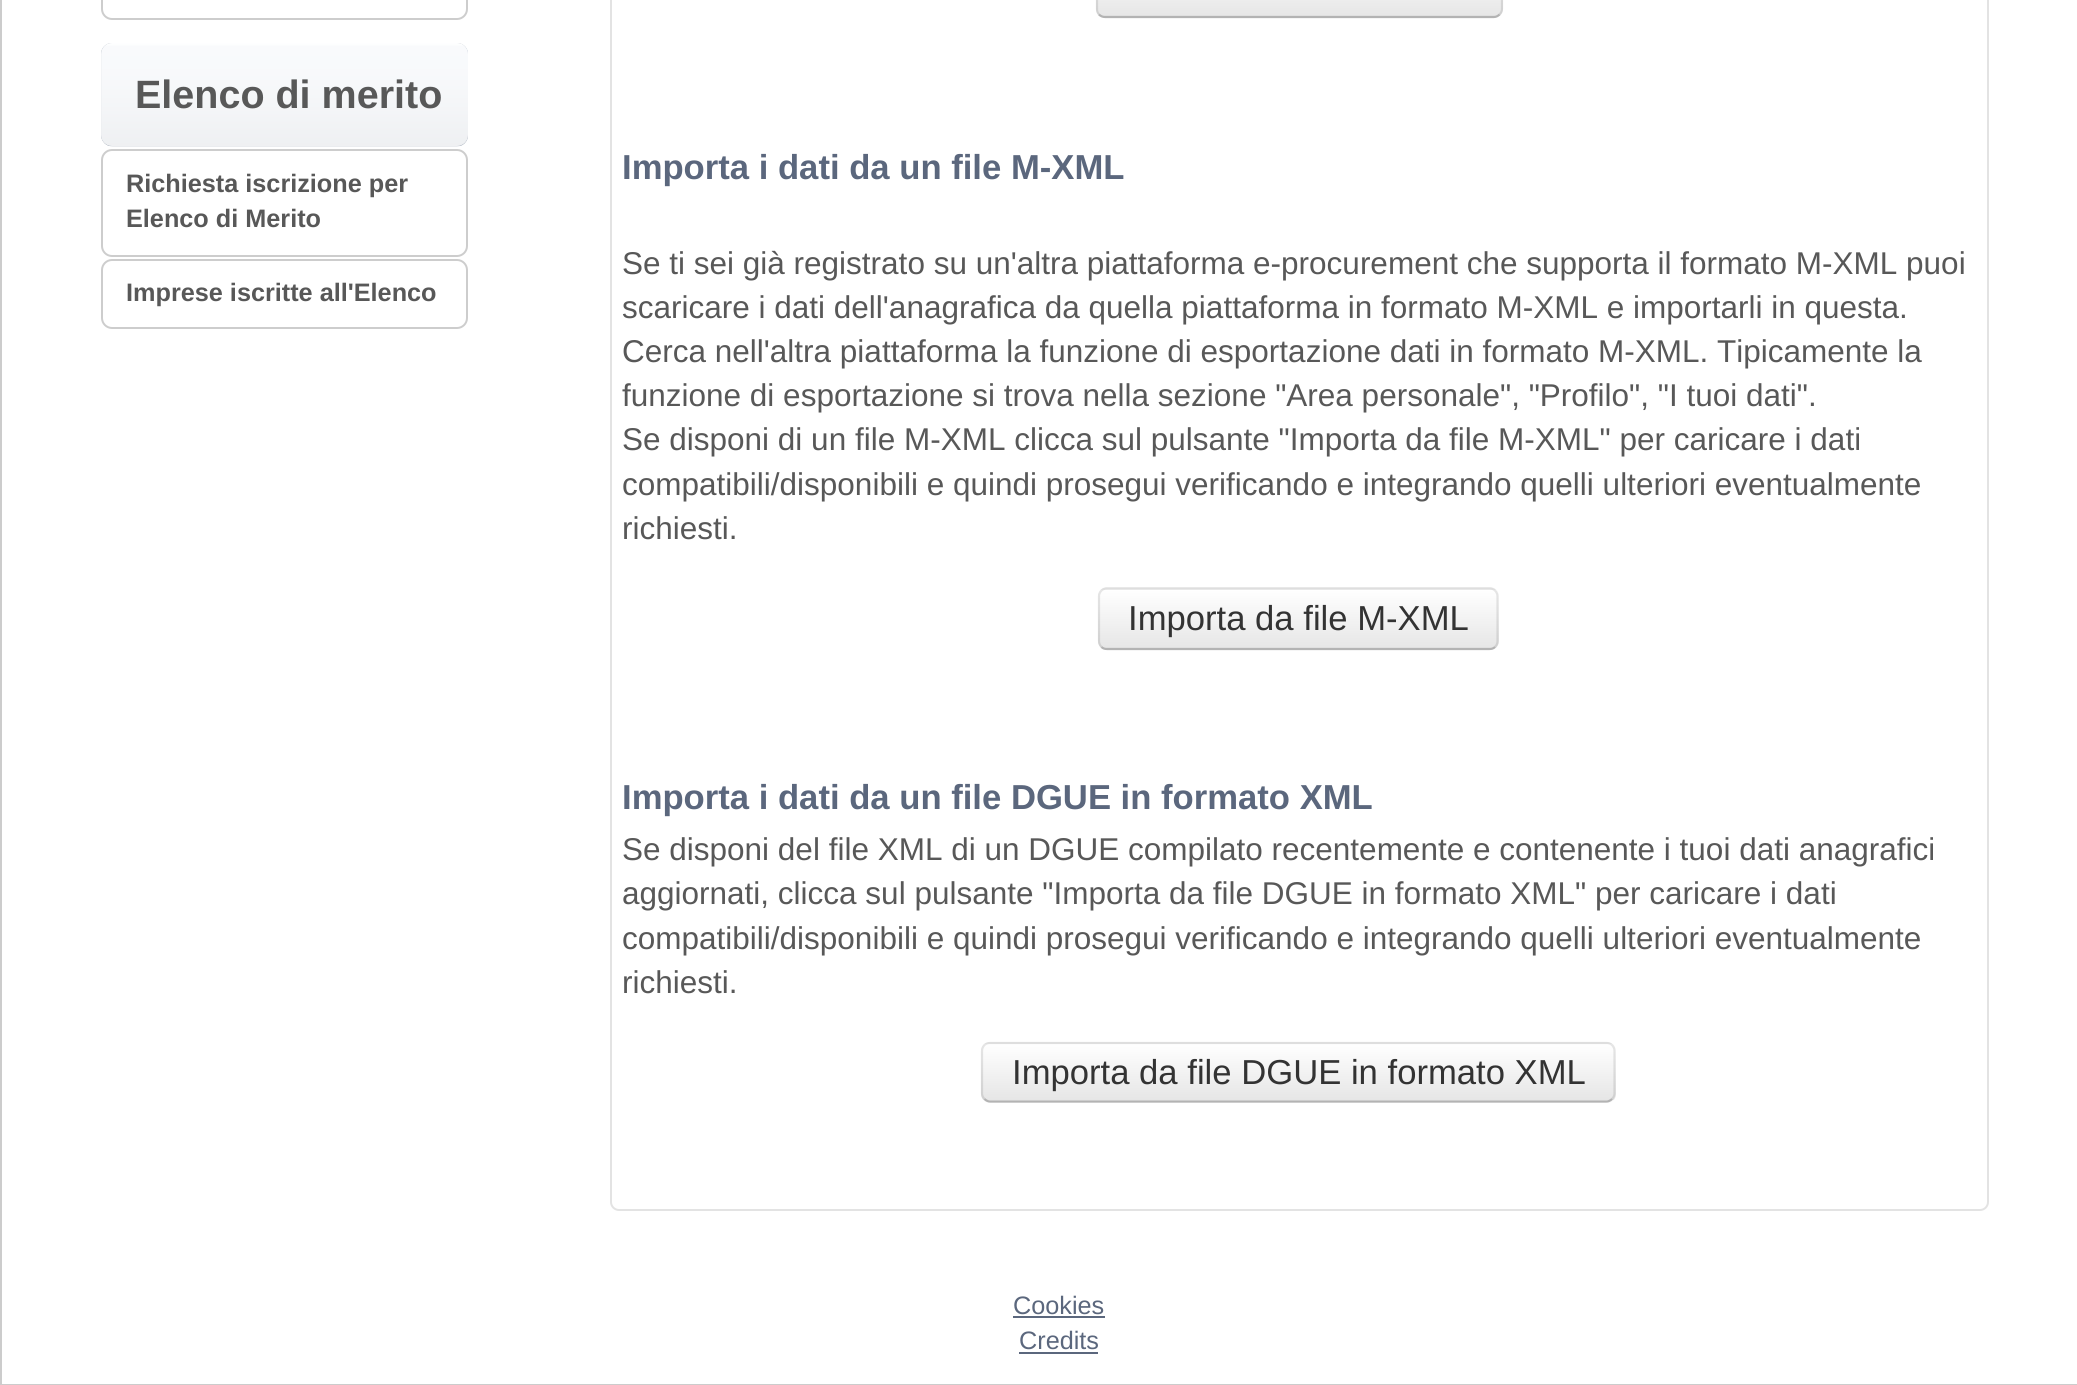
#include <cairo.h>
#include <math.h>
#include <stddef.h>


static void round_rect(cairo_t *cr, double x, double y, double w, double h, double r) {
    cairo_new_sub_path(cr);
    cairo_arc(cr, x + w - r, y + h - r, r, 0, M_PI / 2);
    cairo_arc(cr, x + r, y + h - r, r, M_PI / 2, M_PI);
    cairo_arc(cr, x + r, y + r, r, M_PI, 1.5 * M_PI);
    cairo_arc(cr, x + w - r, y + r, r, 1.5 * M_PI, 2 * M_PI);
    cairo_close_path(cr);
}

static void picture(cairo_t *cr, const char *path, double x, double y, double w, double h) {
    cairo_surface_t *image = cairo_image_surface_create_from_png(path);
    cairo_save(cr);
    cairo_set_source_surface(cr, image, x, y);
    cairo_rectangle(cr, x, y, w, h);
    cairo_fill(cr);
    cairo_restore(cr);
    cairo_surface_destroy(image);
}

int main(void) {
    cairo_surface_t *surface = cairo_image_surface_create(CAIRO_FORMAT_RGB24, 2077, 1385);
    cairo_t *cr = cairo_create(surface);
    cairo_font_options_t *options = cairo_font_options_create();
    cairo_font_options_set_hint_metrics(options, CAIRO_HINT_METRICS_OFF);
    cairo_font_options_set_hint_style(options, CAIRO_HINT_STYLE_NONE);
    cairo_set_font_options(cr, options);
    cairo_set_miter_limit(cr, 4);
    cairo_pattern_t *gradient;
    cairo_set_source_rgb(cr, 1, 1, 1);
    cairo_paint(cr);
    cairo_rectangle(cr, 1, -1, 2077, 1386);
    cairo_set_source_rgb(cr, 0.8, 0.8, 0.8);
    cairo_stroke(cr);
    round_rect(cr, 102, -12, 365, 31, 10);
    cairo_set_source_rgb(cr, 0.804, 0.804, 0.804);
    cairo_stroke(cr);
    cairo_set_source_rgb(cr, 0.592, 0.631, 0.682);
    round_rect(cr, 101, 43, 367, 103, 11);
    cairo_fill(cr);
    picture(cr, "img1.png", 101, 43, 367, 104);
    cairo_set_source_rgba(cr, 1, 1, 1, 0.8);
    round_rect(cr, 101, 43, 367, 103, 11);
    cairo_fill(cr);
    cairo_select_font_face(cr, "Liberation Sans", CAIRO_FONT_SLANT_NORMAL, CAIRO_FONT_WEIGHT_BOLD);
    cairo_set_font_size(cr, 39.5);
    cairo_set_source_rgb(cr, 0.345, 0.345, 0.345);
    cairo_move_to(cr, 135, 108);
    cairo_show_text(cr, "Elenco di merito");
    round_rect(cr, 102, 150, 365, 106, 10);
    cairo_set_source_rgb(cr, 0.804, 0.804, 0.804);
    cairo_stroke(cr);
    cairo_set_font_size(cr, 25.25);
    cairo_set_source_rgb(cr, 0.345, 0.345, 0.345);
    cairo_move_to(cr, 126, 192);
    cairo_show_text(cr, "Richiesta iscrizione per");
    cairo_move_to(cr, 126, 227);
    cairo_show_text(cr, "Elenco di Merito");
    round_rect(cr, 102, 260, 365, 68, 10);
    cairo_set_source_rgb(cr, 0.804, 0.804, 0.804);
    cairo_stroke(cr);
    cairo_set_source_rgb(cr, 0.345, 0.345, 0.345);
    cairo_move_to(cr, 126, 301);
    cairo_show_text(cr, "Imprese iscritte all'Elenco");
    round_rect(cr, 611, -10, 1377, 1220, 8);
    cairo_set_source_rgb(cr, 0.89, 0.89, 0.89);
    cairo_stroke(cr);
    cairo_save(cr);
    round_rect(cr, 1096, -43, 407, 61, 9);
    cairo_clip(cr);
    gradient = cairo_pattern_create_linear(1299, -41, 1299, 16);
    cairo_pattern_add_color_stop_rgba(gradient, 0, 1, 1, 1, 1);
    cairo_pattern_add_color_stop_rgba(gradient, 1, 0.902, 0.902, 0.902, 1);
    cairo_set_source(cr, gradient);
    cairo_pattern_destroy(gradient);
    cairo_rectangle(cr, 1096, 0, 407, 16);
    cairo_fill(cr);
    cairo_restore(cr);
    cairo_new_path(cr);
    cairo_move_to(cr, 1499.5, 14.5);
    cairo_curve_to(cr, 1498, 16, 1496, 17, 1494, 17);
    cairo_line_to(cr, 1105, 17);
    cairo_curve_to(cr, 1102.5, 17, 1100.5, 16, 1099, 14.5);
    cairo_set_source_rgb(cr, 0.702, 0.702, 0.702);
    cairo_set_line_width(cr, 2.2);
    cairo_stroke(cr);
    cairo_new_path(cr);
    cairo_move_to(cr, 1099, 14.5);
    cairo_curve_to(cr, 1097.5, 13, 1097, 11, 1097, 9);
    cairo_line_to(cr, 1097, -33.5);
    cairo_curve_to(cr, 1097, -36, 1097.5, -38, 1099, -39.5);
    cairo_curve_to(cr, 1100.5, -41, 1102.5, -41.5, 1105, -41.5);
    cairo_line_to(cr, 1494, -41.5);
    cairo_curve_to(cr, 1496, -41.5, 1498, -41, 1499.5, -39.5);
    cairo_curve_to(cr, 1501, -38, 1502, -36, 1502, -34);
    cairo_line_to(cr, 1502, 9);
    cairo_curve_to(cr, 1502, 11, 1501, 13, 1499.5, 14.5);
    cairo_set_source_rgba(cr, 0, 0, 0, 0.1);
    cairo_stroke(cr);
    cairo_set_font_size(cr, 34.65);
    cairo_set_source_rgb(cr, 0.357, 0.404, 0.49);
    cairo_move_to(cr, 622, 179);
    cairo_show_text(cr, "Importa i dati da un file M-XML");
    cairo_select_font_face(cr, "Liberation Sans", CAIRO_FONT_SLANT_NORMAL, CAIRO_FONT_WEIGHT_NORMAL);
    cairo_set_font_size(cr, 31.5);
    cairo_set_source_rgb(cr, 0.345, 0.345, 0.345);
    cairo_move_to(cr, 622, 274);
    cairo_show_text(cr, "Se ti sei già registrato su un'altra piattaforma e-procurement che supporta il formato M-XML puoi");
    cairo_move_to(cr, 622, 318);
    cairo_show_text(cr, "scaricare i dati dell'anagrafica da quella piattaforma in formato M-XML e importarli in questa.");
    cairo_move_to(cr, 622, 362);
    cairo_show_text(cr, "Cerca nell'altra piattaforma la funzione di esportazione dati in formato M-XML. Tipicamente la");
    cairo_move_to(cr, 622, 406);
    cairo_show_text(cr, "funzione di esportazione si trova nella sezione \"Area personale\", \"Profilo\", \"I tuoi dati\".");
    cairo_move_to(cr, 622, 450);
    cairo_show_text(cr, "Se disponi di un file M-XML clicca sul pulsante \"Importa da file M-XML\" per caricare i dati");
    cairo_move_to(cr, 622, 495);
    cairo_show_text(cr, "compatibili/disponibili e quindi prosegui verificando e integrando quelli ulteriori eventualmente");
    cairo_move_to(cr, 622, 539);
    cairo_show_text(cr, "richiesti.");
    cairo_set_source_rgb(cr, 0.961, 0.961, 0.961);
    round_rect(cr, 1098, 587, 401, 63, 9);
    cairo_fill(cr);
    cairo_save(cr);
    round_rect(cr, 1098, 587, 401, 63, 9);
    cairo_clip(cr);
    gradient = cairo_pattern_create_linear(1298, 590, 1298, 648);
    cairo_pattern_add_color_stop_rgba(gradient, 0, 1, 1, 1, 1);
    cairo_pattern_add_color_stop_rgba(gradient, 1, 0.902, 0.902, 0.902, 1);
    cairo_set_source(cr, gradient);
    cairo_pattern_destroy(gradient);
    cairo_rectangle(cr, 1098, 590, 401, 58);
    cairo_fill(cr);
    cairo_restore(cr);
    cairo_new_path(cr);
    cairo_move_to(cr, 1495, 647);
    cairo_curve_to(cr, 1493.5, 648.5, 1491.5, 649, 1489.5, 649);
    cairo_line_to(cr, 1107, 649);
    cairo_curve_to(cr, 1105, 649, 1103, 648.5, 1101.5, 647);
    cairo_set_source_rgb(cr, 0.702, 0.702, 0.702);
    cairo_stroke(cr);
    cairo_new_path(cr);
    cairo_move_to(cr, 1101.5, 647);
    cairo_curve_to(cr, 1100, 645.5, 1099, 643.5, 1099, 641);
    cairo_line_to(cr, 1099, 596);
    cairo_curve_to(cr, 1099, 594, 1100, 592, 1101.5, 590.5);
    cairo_curve_to(cr, 1103, 589, 1105, 588.5, 1107, 588.5);
    cairo_line_to(cr, 1489.5, 588.5);
    cairo_curve_to(cr, 1491.5, 588.5, 1493.5, 589, 1495, 590.5);
    cairo_curve_to(cr, 1496.5, 592, 1497.5, 594, 1497.5, 596);
    cairo_line_to(cr, 1497.5, 641);
    cairo_curve_to(cr, 1497.5, 643.5, 1496.5, 645.5, 1495, 647);
    cairo_set_source_rgba(cr, 0, 0, 0, 0.1);
    cairo_stroke(cr);
    cairo_set_font_size(cr, 34.65);
    cairo_set_source_rgb(cr, 0.2, 0.2, 0.2);
    cairo_move_to(cr, 1128, 630);
    cairo_show_text(cr, "Importa da file M-XML");
    cairo_select_font_face(cr, "Liberation Sans", CAIRO_FONT_SLANT_NORMAL, CAIRO_FONT_WEIGHT_BOLD);
    cairo_set_source_rgb(cr, 0.357, 0.404, 0.49);
    cairo_move_to(cr, 622, 809);
    cairo_show_text(cr, "Importa i dati da un file DGUE in formato XML");
    cairo_select_font_face(cr, "Liberation Sans", CAIRO_FONT_SLANT_NORMAL, CAIRO_FONT_WEIGHT_NORMAL);
    cairo_set_font_size(cr, 31.5);
    cairo_set_source_rgb(cr, 0.345, 0.345, 0.345);
    cairo_move_to(cr, 622, 860);
    cairo_show_text(cr, "Se disponi del file XML di un DGUE compilato recentemente e contenente i tuoi dati anagrafici");
    cairo_move_to(cr, 622, 904);
    cairo_show_text(cr, "aggiornati, clicca sul pulsante \"Importa da file DGUE in formato XML\" per caricare i dati");
    cairo_move_to(cr, 622, 949);
    cairo_show_text(cr, "compatibili/disponibili e quindi prosegui verificando e integrando quelli ulteriori eventualmente");
    cairo_move_to(cr, 622, 993);
    cairo_show_text(cr, "richiesti.");
    cairo_set_source_rgb(cr, 0.961, 0.961, 0.961);
    round_rect(cr, 981, 1042, 635, 61, 9);
    cairo_fill(cr);
    cairo_save(cr);
    round_rect(cr, 981, 1042, 635, 61, 9);
    cairo_clip(cr);
    gradient = cairo_pattern_create_linear(1298, 1044, 1298, 1100);
    cairo_pattern_add_color_stop_rgba(gradient, 0, 1, 1, 1, 1);
    cairo_pattern_add_color_stop_rgba(gradient, 1, 0.902, 0.902, 0.902, 1);
    cairo_set_source(cr, gradient);
    cairo_pattern_destroy(gradient);
    cairo_rectangle(cr, 981, 1044, 635, 56);
    cairo_fill(cr);
    cairo_restore(cr);
    cairo_new_path(cr);
    cairo_move_to(cr, 1612, 1099);
    cairo_curve_to(cr, 1610.5, 1100.5, 1608.5, 1101.5, 1606.5, 1101.5);
    cairo_line_to(cr, 990, 1101.5);
    cairo_curve_to(cr, 988, 1101.5, 986, 1100.5, 984.5, 1099);
    cairo_set_source_rgb(cr, 0.702, 0.702, 0.702);
    cairo_stroke(cr);
    cairo_new_path(cr);
    cairo_move_to(cr, 984.5, 1099);
    cairo_curve_to(cr, 983, 1097.5, 982, 1095.5, 982, 1093.5);
    cairo_line_to(cr, 982, 1051);
    cairo_curve_to(cr, 982, 1048.5, 983, 1046.5, 984.5, 1045);
    cairo_curve_to(cr, 986, 1043.5, 988, 1043, 990, 1043);
    cairo_line_to(cr, 1606.5, 1043);
    cairo_curve_to(cr, 1608.5, 1043, 1610.5, 1043.5, 1612, 1045);
    cairo_curve_to(cr, 1613.5, 1046.5, 1614.5, 1048.5, 1614.5, 1051);
    cairo_line_to(cr, 1614.5, 1093.5);
    cairo_curve_to(cr, 1614.5, 1095.5, 1613.5, 1097.5, 1612, 1099);
    cairo_set_source_rgba(cr, 0, 0, 0, 0.1);
    cairo_stroke(cr);
    cairo_set_font_size(cr, 34.65);
    cairo_set_source_rgb(cr, 0.2, 0.2, 0.2);
    cairo_move_to(cr, 1012, 1084);
    cairo_show_text(cr, "Importa da file DGUE in formato XML");
    cairo_set_font_size(cr, 25.25);
    cairo_set_source_rgb(cr, 0.357, 0.404, 0.49);
    cairo_move_to(cr, 1013, 1314);
    cairo_show_text(cr, "Cookies");
    cairo_rectangle(cr, 1013, 1316, 92, 2);
    cairo_fill(cr);
    cairo_move_to(cr, 1019, 1349);
    cairo_show_text(cr, "Credits");
    cairo_rectangle(cr, 1019, 1352, 79, 2);
    cairo_fill(cr);
    cairo_surface_write_to_png(surface, "page.png");
    cairo_font_options_destroy(options);
    cairo_destroy(cr);
    cairo_surface_destroy(surface);
    return 0;
}
